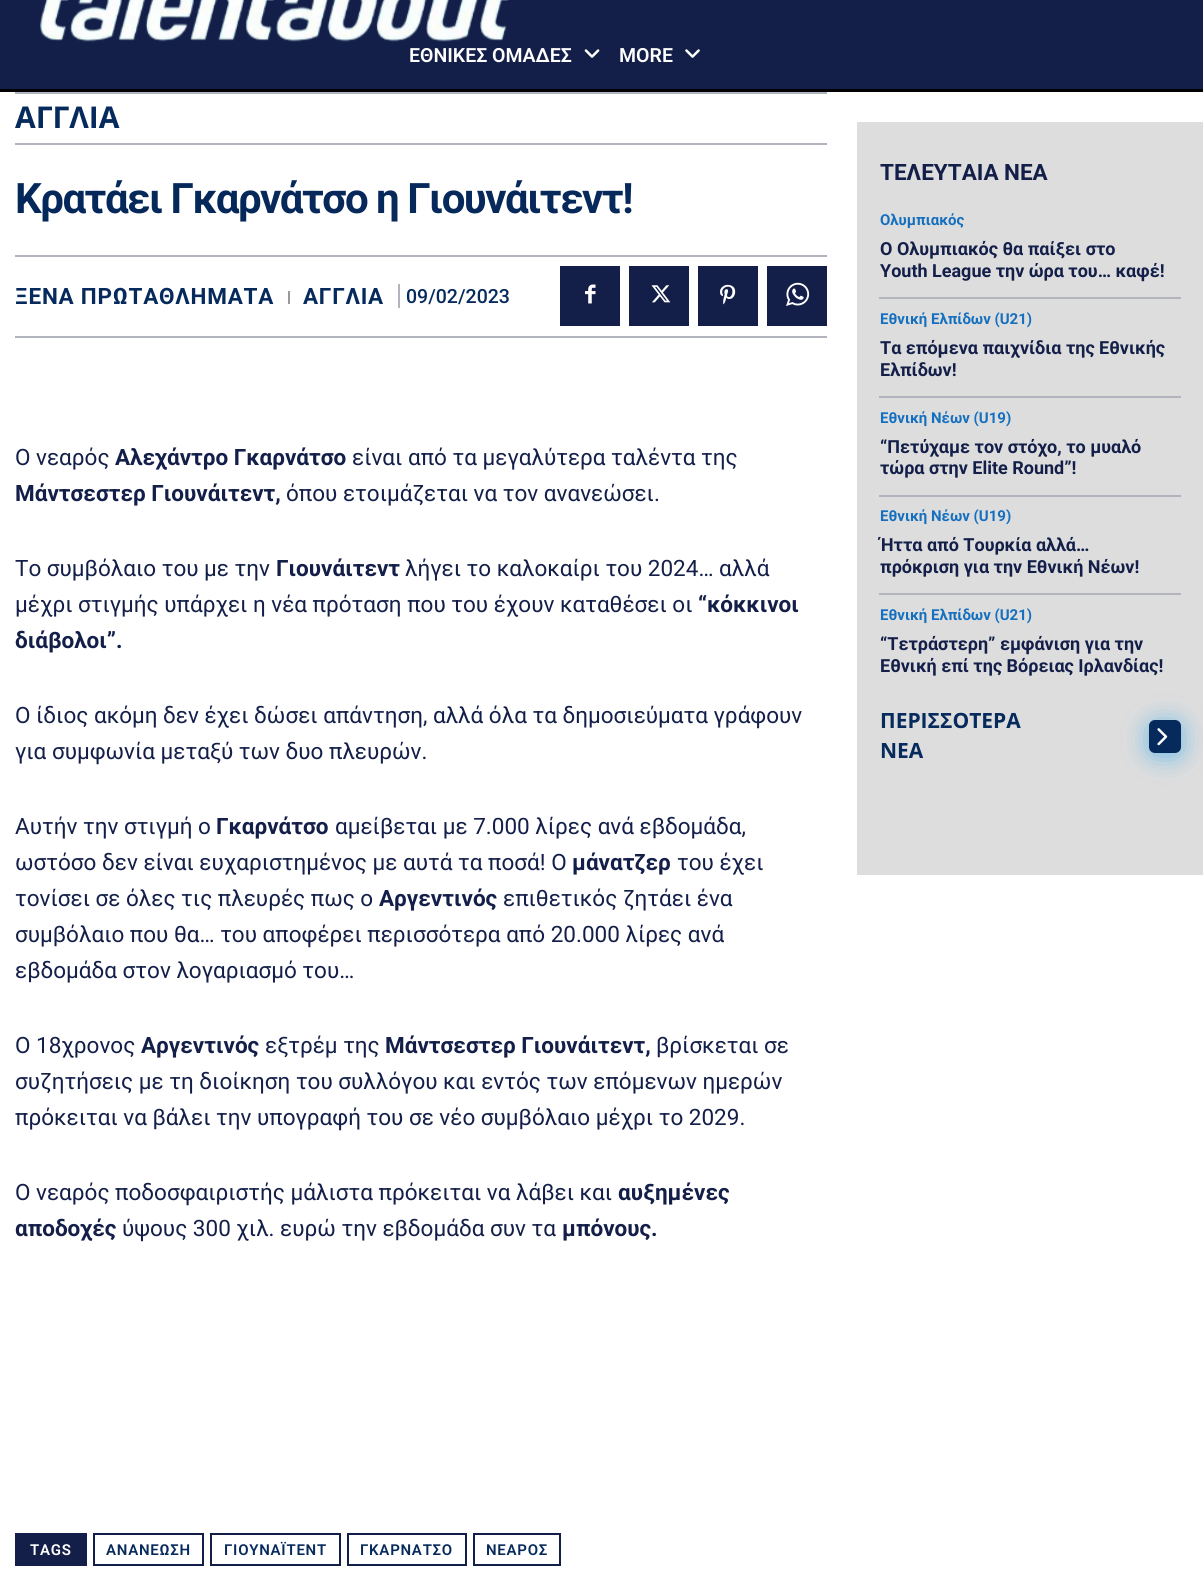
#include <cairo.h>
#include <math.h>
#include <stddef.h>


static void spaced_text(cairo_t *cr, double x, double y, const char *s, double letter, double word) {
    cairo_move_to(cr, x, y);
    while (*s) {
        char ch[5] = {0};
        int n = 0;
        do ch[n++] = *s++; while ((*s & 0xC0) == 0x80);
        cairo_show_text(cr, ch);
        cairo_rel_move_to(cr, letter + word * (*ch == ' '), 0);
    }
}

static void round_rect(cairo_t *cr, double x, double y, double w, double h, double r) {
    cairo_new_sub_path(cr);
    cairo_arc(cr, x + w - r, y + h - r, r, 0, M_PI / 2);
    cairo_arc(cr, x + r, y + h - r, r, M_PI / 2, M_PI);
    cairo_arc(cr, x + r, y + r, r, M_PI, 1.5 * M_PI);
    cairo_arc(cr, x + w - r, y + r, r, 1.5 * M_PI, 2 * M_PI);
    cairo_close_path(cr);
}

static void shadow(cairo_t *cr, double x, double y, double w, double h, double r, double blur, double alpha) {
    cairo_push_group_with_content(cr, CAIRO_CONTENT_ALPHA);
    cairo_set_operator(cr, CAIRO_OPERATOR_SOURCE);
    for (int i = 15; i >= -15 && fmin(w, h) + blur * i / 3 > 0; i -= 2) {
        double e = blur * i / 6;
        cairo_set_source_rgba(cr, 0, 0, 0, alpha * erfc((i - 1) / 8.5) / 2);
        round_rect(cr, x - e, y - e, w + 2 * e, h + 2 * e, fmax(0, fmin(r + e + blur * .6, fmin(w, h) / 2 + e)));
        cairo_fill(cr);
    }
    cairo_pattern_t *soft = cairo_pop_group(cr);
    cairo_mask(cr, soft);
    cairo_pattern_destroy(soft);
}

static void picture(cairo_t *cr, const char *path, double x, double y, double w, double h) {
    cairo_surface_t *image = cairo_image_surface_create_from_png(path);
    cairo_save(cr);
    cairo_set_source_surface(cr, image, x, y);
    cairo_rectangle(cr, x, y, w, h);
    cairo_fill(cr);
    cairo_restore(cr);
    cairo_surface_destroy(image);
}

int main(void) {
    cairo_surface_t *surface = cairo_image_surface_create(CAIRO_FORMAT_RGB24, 1203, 1575);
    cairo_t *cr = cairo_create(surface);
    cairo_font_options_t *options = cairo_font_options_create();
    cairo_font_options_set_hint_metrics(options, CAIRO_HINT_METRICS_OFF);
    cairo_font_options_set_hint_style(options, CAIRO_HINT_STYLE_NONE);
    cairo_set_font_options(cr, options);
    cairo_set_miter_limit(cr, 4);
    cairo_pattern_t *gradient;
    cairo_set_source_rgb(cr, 1, 1, 1);
    cairo_paint(cr);
    cairo_set_source_rgb(cr, 0.075, 0.122, 0.286);
    cairo_rectangle(cr, 0, 0, 1203, 89);
    cairo_fill(cr);
    picture(cr, "img1.png", 40, 0, 469, 42);
    cairo_select_font_face(cr, "Roboto SemiBold", CAIRO_FONT_SLANT_NORMAL, CAIRO_FONT_WEIGHT_NORMAL);
    cairo_set_font_size(cr, 19.5);
    cairo_set_source_rgb(cr, 1, 1, 1);
    cairo_move_to(cr, 409, 62);
    cairo_show_text(cr, "ΕΘΝΙΚΕΣ ΟΜΑΔΕΣ");
    picture(cr, "img2.png", 584, 49, 16, 9);
    cairo_move_to(cr, 619, 62);
    cairo_show_text(cr, "MORE");
    picture(cr, "img3.png", 685, 49, 15, 9);
    cairo_set_source_rgb(cr, 0, 0, 0);
    cairo_rectangle(cr, 0, 89, 1203, 3);
    cairo_fill(cr);
    cairo_set_source_rgb(cr, 0.694, 0.706, 0.737);
    cairo_rectangle(cr, 15, 92, 812, 2);
    cairo_fill(cr);
    cairo_rectangle(cr, 15, 143, 812, 2);
    cairo_fill(cr);
    cairo_select_font_face(cr, "Open Sans", CAIRO_FONT_SLANT_NORMAL, CAIRO_FONT_WEIGHT_BOLD);
    cairo_set_font_size(cr, 30);
    cairo_set_source_rgb(cr, 0.031, 0.165, 0.365);
    cairo_move_to(cr, 15, 128);
    cairo_show_text(cr, "ΑΓΓΛΙΑ");
    cairo_select_font_face(cr, "Roboto", CAIRO_FONT_SLANT_NORMAL, CAIRO_FONT_WEIGHT_BOLD);
    cairo_set_font_size(cr, 42);
    gradient = cairo_pattern_create_linear(632, 199, 15, 199);
    cairo_pattern_add_color_stop_rgba(gradient, 0, 0.024, 0.157, 0.357, 1);
    cairo_pattern_add_color_stop_rgba(gradient, 1, 0.02, 0.157, 0.357, 1);
    cairo_set_source(cr, gradient);
    cairo_pattern_destroy(gradient);
    spaced_text(cr, 15, 213, "Κρατάει Γκαρνάτσο η Γιουνάιτεντ!", -1.5, 0);
    cairo_set_source_rgb(cr, 0.694, 0.706, 0.737);
    cairo_rectangle(cr, 15, 255, 812, 2);
    cairo_fill(cr);
    cairo_rectangle(cr, 15, 336, 812, 2);
    cairo_fill(cr);
    cairo_set_font_size(cr, 22.5);
    cairo_set_source_rgb(cr, 0.031, 0.165, 0.365);
    spaced_text(cr, 15, 304, "ΞΕΝΑ ΠΡΩΤΑΘΛΗΜΑΤΑ", 0.75, 0);
    cairo_set_source_rgb(cr, 0.6, 0.6, 0.6);
    cairo_rectangle(cr, 288, 291, 2, 13);
    cairo_fill(cr);
    cairo_set_source_rgb(cr, 0.031, 0.165, 0.365);
    spaced_text(cr, 303, 304, "ΑΓΓΛΙΑ", 0.75, 0);
    cairo_set_source_rgb(cr, 0.694, 0.706, 0.737);
    cairo_rectangle(cr, 398, 284, 2, 24);
    cairo_fill(cr);
    cairo_select_font_face(cr, "Roboto Medium", CAIRO_FONT_SLANT_NORMAL, CAIRO_FONT_WEIGHT_NORMAL);
    cairo_set_font_size(cr, 19.5);
    cairo_set_source_rgb(cr, 0.031, 0.165, 0.365);
    cairo_move_to(cr, 406, 303);
    cairo_show_text(cr, "09/02/2023");
    cairo_set_source_rgb(cr, 0.075, 0.122, 0.286);
    cairo_rectangle(cr, 560, 266, 60, 60);
    cairo_fill(cr);
    picture(cr, "img4.png", 585, 284, 11, 20);
    cairo_rectangle(cr, 629, 266, 60, 60);
    cairo_fill(cr);
    picture(cr, "img5.png", 651, 285, 20, 18);
    cairo_rectangle(cr, 698, 266, 60, 60);
    cairo_fill(cr);
    picture(cr, "img6.png", 720, 284, 16, 21);
    cairo_rectangle(cr, 767, 266, 60, 60);
    cairo_fill(cr);
    picture(cr, "img7.png", 786, 282, 24, 24);
    cairo_select_font_face(cr, "Roboto", CAIRO_FONT_SLANT_NORMAL, CAIRO_FONT_WEIGHT_NORMAL);
    cairo_set_font_size(cr, 22.5);
    cairo_move_to(cr, 15, 465);
    cairo_show_text(cr, "Ο νεαρός");
    cairo_select_font_face(cr, "Roboto", CAIRO_FONT_SLANT_NORMAL, CAIRO_FONT_WEIGHT_BOLD);
    cairo_move_to(cr, 115, 465);
    cairo_show_text(cr, "Αλεχάντρο Γκαρνάτσο");
    cairo_select_font_face(cr, "Roboto", CAIRO_FONT_SLANT_NORMAL, CAIRO_FONT_WEIGHT_NORMAL);
    cairo_move_to(cr, 352, 465);
    cairo_show_text(cr, "είναι από τα μεγαλύτερα ταλέντα της");
    cairo_select_font_face(cr, "Roboto", CAIRO_FONT_SLANT_NORMAL, CAIRO_FONT_WEIGHT_BOLD);
    cairo_move_to(cr, 15, 501);
    cairo_show_text(cr, "Μάντσεστερ Γιουνάιτεντ,");
    cairo_select_font_face(cr, "Roboto", CAIRO_FONT_SLANT_NORMAL, CAIRO_FONT_WEIGHT_NORMAL);
    cairo_move_to(cr, 286, 501);
    cairo_show_text(cr, "όπου ετοιμάζεται να τον ανανεώσει.");
    cairo_move_to(cr, 15, 576);
    cairo_show_text(cr, "Το συμβόλαιο του με την");
    cairo_select_font_face(cr, "Roboto", CAIRO_FONT_SLANT_NORMAL, CAIRO_FONT_WEIGHT_BOLD);
    cairo_move_to(cr, 276, 576);
    cairo_show_text(cr, "Γιουνάιτεντ");
    cairo_select_font_face(cr, "Roboto", CAIRO_FONT_SLANT_NORMAL, CAIRO_FONT_WEIGHT_NORMAL);
    cairo_move_to(cr, 405, 576);
    cairo_show_text(cr, "λήγει το καλοκαίρι του 2024… αλλά");
    cairo_move_to(cr, 15, 612);
    cairo_show_text(cr, "μέχρι στιγμής υπάρχει η νέα πρόταση που του έχουν καταθέσει οι");
    cairo_select_font_face(cr, "Roboto", CAIRO_FONT_SLANT_NORMAL, CAIRO_FONT_WEIGHT_BOLD);
    cairo_move_to(cr, 698, 612);
    cairo_show_text(cr, "“κόκκινοι");
    cairo_move_to(cr, 15, 648);
    cairo_show_text(cr, "διάβολοι”.");
    cairo_select_font_face(cr, "Roboto", CAIRO_FONT_SLANT_NORMAL, CAIRO_FONT_WEIGHT_NORMAL);
    cairo_move_to(cr, 15, 723);
    cairo_show_text(cr, "Ο ίδιος ακόμη δεν έχει δώσει απάντηση, αλλά όλα τα δημοσιεύματα γράφουν");
    cairo_move_to(cr, 15, 759);
    cairo_show_text(cr, "για συμφωνία μεταξύ των δυο πλευρών.");
    cairo_move_to(cr, 15, 834);
    cairo_show_text(cr, "Αυτήν την στιγμή ο");
    cairo_select_font_face(cr, "Roboto", CAIRO_FONT_SLANT_NORMAL, CAIRO_FONT_WEIGHT_BOLD);
    cairo_move_to(cr, 216, 834);
    cairo_show_text(cr, "Γκαρνάτσο");
    cairo_select_font_face(cr, "Roboto", CAIRO_FONT_SLANT_NORMAL, CAIRO_FONT_WEIGHT_NORMAL);
    cairo_move_to(cr, 335, 834);
    cairo_show_text(cr, "αμείβεται με 7.000 λίρες ανά εβδομάδα,");
    cairo_move_to(cr, 15, 870);
    cairo_show_text(cr, "ωστόσο δεν είναι ευχαριστημένος με αυτά τα ποσά! Ο");
    cairo_select_font_face(cr, "Roboto", CAIRO_FONT_SLANT_NORMAL, CAIRO_FONT_WEIGHT_BOLD);
    cairo_move_to(cr, 572, 870);
    cairo_show_text(cr, "μάνατζερ");
    cairo_select_font_face(cr, "Roboto", CAIRO_FONT_SLANT_NORMAL, CAIRO_FONT_WEIGHT_NORMAL);
    cairo_move_to(cr, 677, 870);
    cairo_show_text(cr, "του έχει");
    cairo_move_to(cr, 15, 906);
    cairo_show_text(cr, "τονίσει σε όλες τις πλευρές πως ο");
    cairo_select_font_face(cr, "Roboto", CAIRO_FONT_SLANT_NORMAL, CAIRO_FONT_WEIGHT_BOLD);
    cairo_move_to(cr, 379, 906);
    cairo_show_text(cr, "Αργεντινός");
    cairo_select_font_face(cr, "Roboto", CAIRO_FONT_SLANT_NORMAL, CAIRO_FONT_WEIGHT_NORMAL);
    cairo_move_to(cr, 503, 906);
    cairo_show_text(cr, "επιθετικός ζητάει ένα");
    cairo_move_to(cr, 15, 942);
    cairo_show_text(cr, "συμβόλαιο που θα… του αποφέρει περισσότερα από 20.000 λίρες ανά");
    cairo_move_to(cr, 15, 978);
    cairo_show_text(cr, "εβδομάδα στον λογαριασμό του…");
    cairo_move_to(cr, 15, 1053);
    cairo_show_text(cr, "Ο 18χρονος");
    cairo_select_font_face(cr, "Roboto", CAIRO_FONT_SLANT_NORMAL, CAIRO_FONT_WEIGHT_BOLD);
    cairo_move_to(cr, 141, 1053);
    cairo_show_text(cr, "Αργεντινός");
    cairo_select_font_face(cr, "Roboto", CAIRO_FONT_SLANT_NORMAL, CAIRO_FONT_WEIGHT_NORMAL);
    cairo_move_to(cr, 265, 1053);
    cairo_show_text(cr, "εξτρέμ της");
    cairo_select_font_face(cr, "Roboto", CAIRO_FONT_SLANT_NORMAL, CAIRO_FONT_WEIGHT_BOLD);
    cairo_move_to(cr, 385, 1053);
    cairo_show_text(cr, "Μάντσεστερ Γιουνάιτεντ,");
    cairo_select_font_face(cr, "Roboto", CAIRO_FONT_SLANT_NORMAL, CAIRO_FONT_WEIGHT_NORMAL);
    cairo_move_to(cr, 656, 1053);
    cairo_show_text(cr, "βρίσκεται σε");
    cairo_move_to(cr, 15, 1089);
    cairo_show_text(cr, "συζητήσεις με τη διοίκηση του συλλόγου και εντός των επόμενων ημερών");
    cairo_move_to(cr, 15, 1125);
    cairo_show_text(cr, "πρόκειται να βάλει την υπογραφή του σε νέο συμβόλαιο μέχρι το 2029.");
    cairo_move_to(cr, 15, 1200);
    cairo_show_text(cr, "Ο νεαρός ποδοσφαιριστής μάλιστα πρόκειται να λάβει και");
    cairo_select_font_face(cr, "Roboto", CAIRO_FONT_SLANT_NORMAL, CAIRO_FONT_WEIGHT_BOLD);
    cairo_move_to(cr, 618, 1200);
    cairo_show_text(cr, "αυξημένες");
    cairo_move_to(cr, 15, 1236);
    cairo_show_text(cr, "αποδοχές");
    cairo_select_font_face(cr, "Roboto", CAIRO_FONT_SLANT_NORMAL, CAIRO_FONT_WEIGHT_NORMAL);
    cairo_move_to(cr, 122, 1236);
    cairo_show_text(cr, "ύψους 300 χιλ. ευρώ την εβδομάδα συν τα");
    cairo_select_font_face(cr, "Roboto", CAIRO_FONT_SLANT_NORMAL, CAIRO_FONT_WEIGHT_BOLD);
    cairo_move_to(cr, 562, 1236);
    cairo_show_text(cr, "μπόνους.");
    cairo_rectangle(cr, 15, 1533, 72, 33);
    cairo_fill(cr);
    cairo_select_font_face(cr, "Roboto SemiBold", CAIRO_FONT_SLANT_NORMAL, CAIRO_FONT_WEIGHT_NORMAL);
    cairo_set_font_size(cr, 15);
    cairo_set_source_rgb(cr, 1, 1, 1);
    spaced_text(cr, 30, 1555, "TAGS", 0.75, 0);
    cairo_rectangle(cr, 94, 1534, 109, 31);
    cairo_set_source_rgb(cr, 0.075, 0.122, 0.286);
    cairo_stroke(cr);
    cairo_set_source_rgb(cr, 0.031, 0.165, 0.365);
    spaced_text(cr, 106, 1555, "ΑΝΑΝΕΩΣΗ", 0.75, 0);
    cairo_rectangle(cr, 211, 1534, 129, 31);
    cairo_set_source_rgb(cr, 0.075, 0.122, 0.286);
    cairo_stroke(cr);
    cairo_set_source_rgb(cr, 0.031, 0.165, 0.365);
    spaced_text(cr, 224, 1555, "ΓΙΟΥΝΑΪΤΕΝΤ", 0.75, 0);
    cairo_rectangle(cr, 348, 1534, 118, 31);
    cairo_set_source_rgb(cr, 0.075, 0.122, 0.286);
    cairo_stroke(cr);
    cairo_set_source_rgb(cr, 0.031, 0.165, 0.365);
    spaced_text(cr, 360, 1555, "ΓΚΑΡΝΑΤΣΟ", 0.75, 0);
    cairo_rectangle(cr, 474, 1534, 86, 31);
    cairo_set_source_rgb(cr, 0.075, 0.122, 0.286);
    cairo_stroke(cr);
    cairo_set_source_rgb(cr, 0.031, 0.165, 0.365);
    spaced_text(cr, 486, 1555, "ΝΕΑΡΟΣ", 0.75, 0);
    cairo_set_source_rgb(cr, 0.867, 0.867, 0.867);
    cairo_rectangle(cr, 857, 122, 346, 753);
    cairo_fill(cr);
    cairo_select_font_face(cr, "Roboto", CAIRO_FONT_SLANT_NORMAL, CAIRO_FONT_WEIGHT_BOLD);
    cairo_set_font_size(cr, 22.5);
    cairo_set_source_rgb(cr, 0.075, 0.122, 0.286);
    cairo_move_to(cr, 880, 180);
    cairo_show_text(cr, "ΤΕΛΕΥΤΑΙΑ ΝΕΑ");
    cairo_set_font_size(cr, 15);
    cairo_set_source_rgb(cr, 0.082, 0.435, 0.749);
    cairo_move_to(cr, 880, 225);
    cairo_show_text(cr, "Ολυμπιακός");
    cairo_set_font_size(cr, 18);
    cairo_set_source_rgb(cr, 0.075, 0.122, 0.286);
    cairo_move_to(cr, 880, 255);
    cairo_show_text(cr, "Ο Ολυμπιακός θα παίξει στο");
    cairo_move_to(cr, 880, 277);
    cairo_show_text(cr, "Youth League την ώρα του… καφέ!");
    cairo_set_source_rgb(cr, 0.694, 0.706, 0.737);
    cairo_rectangle(cr, 879, 297, 302, 2);
    cairo_fill(cr);
    cairo_set_font_size(cr, 15);
    cairo_set_source_rgb(cr, 0.082, 0.435, 0.749);
    cairo_move_to(cr, 880, 324);
    cairo_show_text(cr, "Εθνική Ελπίδων (U21)");
    cairo_set_font_size(cr, 18);
    cairo_set_source_rgb(cr, 0.075, 0.122, 0.286);
    cairo_move_to(cr, 880, 354);
    cairo_show_text(cr, "Τα επόμενα παιχνίδια της Εθνικής");
    cairo_move_to(cr, 880, 376);
    cairo_show_text(cr, "Ελπίδων!");
    cairo_set_source_rgb(cr, 0.694, 0.706, 0.737);
    cairo_rectangle(cr, 879, 396, 302, 2);
    cairo_fill(cr);
    cairo_set_font_size(cr, 15);
    cairo_set_source_rgb(cr, 0.082, 0.435, 0.749);
    cairo_move_to(cr, 880, 423);
    cairo_show_text(cr, "Εθνική Νέων (U19)");
    cairo_set_font_size(cr, 18);
    cairo_set_source_rgb(cr, 0.075, 0.122, 0.286);
    cairo_move_to(cr, 880, 453);
    cairo_show_text(cr, "“Πετύχαμε τον στόχο, το μυαλό");
    cairo_move_to(cr, 880, 474);
    cairo_show_text(cr, "τώρα στην Elite Round”!");
    cairo_set_source_rgb(cr, 0.694, 0.706, 0.737);
    cairo_rectangle(cr, 879, 495, 302, 2);
    cairo_fill(cr);
    cairo_set_font_size(cr, 15);
    cairo_set_source_rgb(cr, 0.082, 0.435, 0.749);
    cairo_move_to(cr, 880, 521);
    cairo_show_text(cr, "Εθνική Νέων (U19)");
    cairo_set_font_size(cr, 18);
    cairo_set_source_rgb(cr, 0.075, 0.122, 0.286);
    cairo_move_to(cr, 880, 551);
    cairo_show_text(cr, "Ήττα από Τουρκία αλλά…");
    cairo_move_to(cr, 880, 573);
    cairo_show_text(cr, "πρόκριση για την Εθνική Νέων!");
    cairo_set_source_rgb(cr, 0.694, 0.706, 0.737);
    cairo_rectangle(cr, 879, 593, 302, 2);
    cairo_fill(cr);
    cairo_set_font_size(cr, 15);
    cairo_set_source_rgb(cr, 0.082, 0.435, 0.749);
    cairo_move_to(cr, 880, 620);
    cairo_show_text(cr, "Εθνική Ελπίδων (U21)");
    cairo_set_font_size(cr, 18);
    cairo_set_source_rgb(cr, 0.075, 0.122, 0.286);
    cairo_move_to(cr, 880, 650);
    cairo_show_text(cr, "“Τετράστερη” εμφάνιση για την");
    cairo_move_to(cr, 880, 672);
    cairo_show_text(cr, "Εθνική επί της Βόρειας Ιρλανδίας!");
    cairo_select_font_face(cr, "Open Sans", CAIRO_FONT_SLANT_NORMAL, CAIRO_FONT_WEIGHT_BOLD);
    cairo_set_font_size(cr, 21);
    cairo_set_source_rgb(cr, 0.031, 0.165, 0.365);
    cairo_move_to(cr, 880, 728);
    cairo_show_text(cr, "ΠΕΡΙΣΣΟΤΕΡΑ");
    cairo_move_to(cr, 880, 758);
    cairo_show_text(cr, "ΝΕΑ");
    cairo_set_source_rgb(cr, 0.302, 0.698, 0.925);
    shadow(cr, 1149, 723, 32, 33, 6, 12, 0.8);
    cairo_set_source_rgb(cr, 0.031, 0.165, 0.365);
    round_rect(cr, 1149, 720, 32, 33, 6);
    cairo_fill(cr);
    picture(cr, "img8.png", 1157, 728, 11, 18);
    cairo_surface_write_to_png(surface, "page.png");
    cairo_font_options_destroy(options);
    cairo_destroy(cr);
    cairo_surface_destroy(surface);
    return 0;
}
